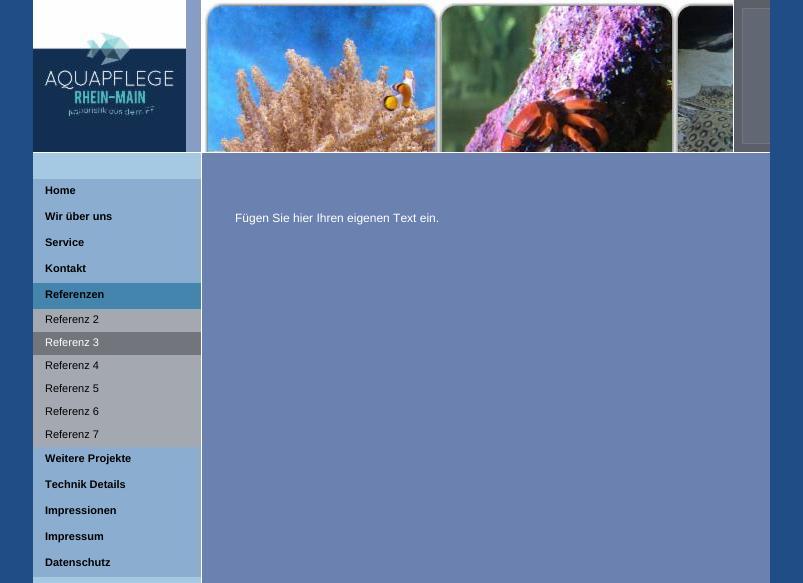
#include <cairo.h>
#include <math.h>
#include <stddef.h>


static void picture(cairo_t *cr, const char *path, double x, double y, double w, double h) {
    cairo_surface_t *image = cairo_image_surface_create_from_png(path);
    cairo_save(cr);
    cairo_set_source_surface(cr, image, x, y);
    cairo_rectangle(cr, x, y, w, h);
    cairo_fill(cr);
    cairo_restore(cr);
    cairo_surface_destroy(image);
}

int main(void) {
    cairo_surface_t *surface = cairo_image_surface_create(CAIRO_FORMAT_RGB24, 803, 583);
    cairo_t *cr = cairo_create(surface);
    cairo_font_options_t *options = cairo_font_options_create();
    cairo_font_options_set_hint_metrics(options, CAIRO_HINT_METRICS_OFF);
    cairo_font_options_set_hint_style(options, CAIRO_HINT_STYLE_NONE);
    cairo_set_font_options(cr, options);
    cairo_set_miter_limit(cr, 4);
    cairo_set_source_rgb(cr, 0.129, 0.302, 0.529);
    cairo_paint(cr);
    picture(cr, "img1.png", 33, 153, 737, 430);
    cairo_set_source_rgb(cr, 0.529, 0.616, 0.769);
    cairo_rectangle(cr, 186, 0, 15, 152);
    cairo_fill(cr);
    picture(cr, "img2.png", 734, 0, 36, 152);
    cairo_set_source_rgb(cr, 1, 1, 1);
    cairo_rectangle(cr, 33, 152, 737, 1);
    cairo_fill(cr);
    picture(cr, "img3.png", 33, 0, 153, 152);
    picture(cr, "img4.png", 202, 0, 531, 152);
    cairo_rectangle(cr, 733, 0, 1, 152);
    cairo_fill(cr);
    cairo_rectangle(cr, 201, 0, 1, 152);
    cairo_fill(cr);
    cairo_set_source_rgb(cr, 0.541, 0.678, 0.816);
    cairo_rectangle(cr, 33, 179, 168, 104);
    cairo_fill(cr);
    cairo_select_font_face(cr, "Liberation Sans", CAIRO_FONT_SLANT_NORMAL, CAIRO_FONT_WEIGHT_BOLD);
    cairo_set_font_size(cr, 11);
    cairo_set_source_rgb(cr, 0, 0, 0);
    cairo_move_to(cr, 45, 194);
    cairo_show_text(cr, "Home");
    cairo_move_to(cr, 45, 220);
    cairo_show_text(cr, "Wir über uns");
    cairo_move_to(cr, 45, 246);
    cairo_show_text(cr, "Service");
    cairo_move_to(cr, 45, 272);
    cairo_show_text(cr, "Kontakt");
    cairo_set_source_rgb(cr, 0.267, 0.522, 0.682);
    cairo_rectangle(cr, 33, 283, 168, 26);
    cairo_fill(cr);
    cairo_set_source_rgb(cr, 0, 0, 0);
    cairo_move_to(cr, 45, 298);
    cairo_show_text(cr, "Referenzen");
    cairo_set_source_rgb(cr, 0.643, 0.659, 0.69);
    cairo_rectangle(cr, 33, 309, 168, 23);
    cairo_fill(cr);
    cairo_select_font_face(cr, "Liberation Sans", CAIRO_FONT_SLANT_NORMAL, CAIRO_FONT_WEIGHT_NORMAL);
    cairo_set_source_rgb(cr, 0, 0, 0);
    cairo_move_to(cr, 45, 323);
    cairo_show_text(cr, "Referenz 2");
    cairo_set_source_rgb(cr, 0.447, 0.459, 0.482);
    cairo_rectangle(cr, 33, 332, 168, 23);
    cairo_fill(cr);
    cairo_set_source_rgb(cr, 1, 1, 1);
    cairo_move_to(cr, 45, 346);
    cairo_show_text(cr, "Referenz 3");
    cairo_set_source_rgb(cr, 0.643, 0.659, 0.69);
    cairo_rectangle(cr, 33, 355, 168, 92);
    cairo_fill(cr);
    cairo_set_source_rgb(cr, 0, 0, 0);
    cairo_move_to(cr, 45, 369);
    cairo_show_text(cr, "Referenz 4");
    cairo_move_to(cr, 45, 392);
    cairo_show_text(cr, "Referenz 5");
    cairo_move_to(cr, 45, 415);
    cairo_show_text(cr, "Referenz 6");
    cairo_move_to(cr, 45, 438);
    cairo_show_text(cr, "Referenz 7");
    cairo_set_source_rgb(cr, 0.541, 0.678, 0.816);
    cairo_rectangle(cr, 33, 447, 168, 130);
    cairo_fill(cr);
    cairo_select_font_face(cr, "Liberation Sans", CAIRO_FONT_SLANT_NORMAL, CAIRO_FONT_WEIGHT_BOLD);
    cairo_set_source_rgb(cr, 0, 0, 0);
    cairo_move_to(cr, 45, 462);
    cairo_show_text(cr, "Weitere Projekte");
    cairo_move_to(cr, 45, 488);
    cairo_show_text(cr, "Technik Details");
    cairo_move_to(cr, 45, 514);
    cairo_show_text(cr, "Impressionen");
    cairo_move_to(cr, 45, 540);
    cairo_show_text(cr, "Impressum");
    cairo_move_to(cr, 45, 566);
    cairo_show_text(cr, "Datenschutz");
    cairo_select_font_face(cr, "Liberation Sans", CAIRO_FONT_SLANT_NORMAL, CAIRO_FONT_WEIGHT_NORMAL);
    cairo_set_font_size(cr, 12);
    cairo_set_source_rgb(cr, 1, 1, 1);
    cairo_move_to(cr, 235, 222);
    cairo_show_text(cr, "Fügen Sie hier Ihren eigenen Text ein.");
    cairo_surface_write_to_png(surface, "page.png");
    cairo_font_options_destroy(options);
    cairo_destroy(cr);
    cairo_surface_destroy(surface);
    return 0;
}
